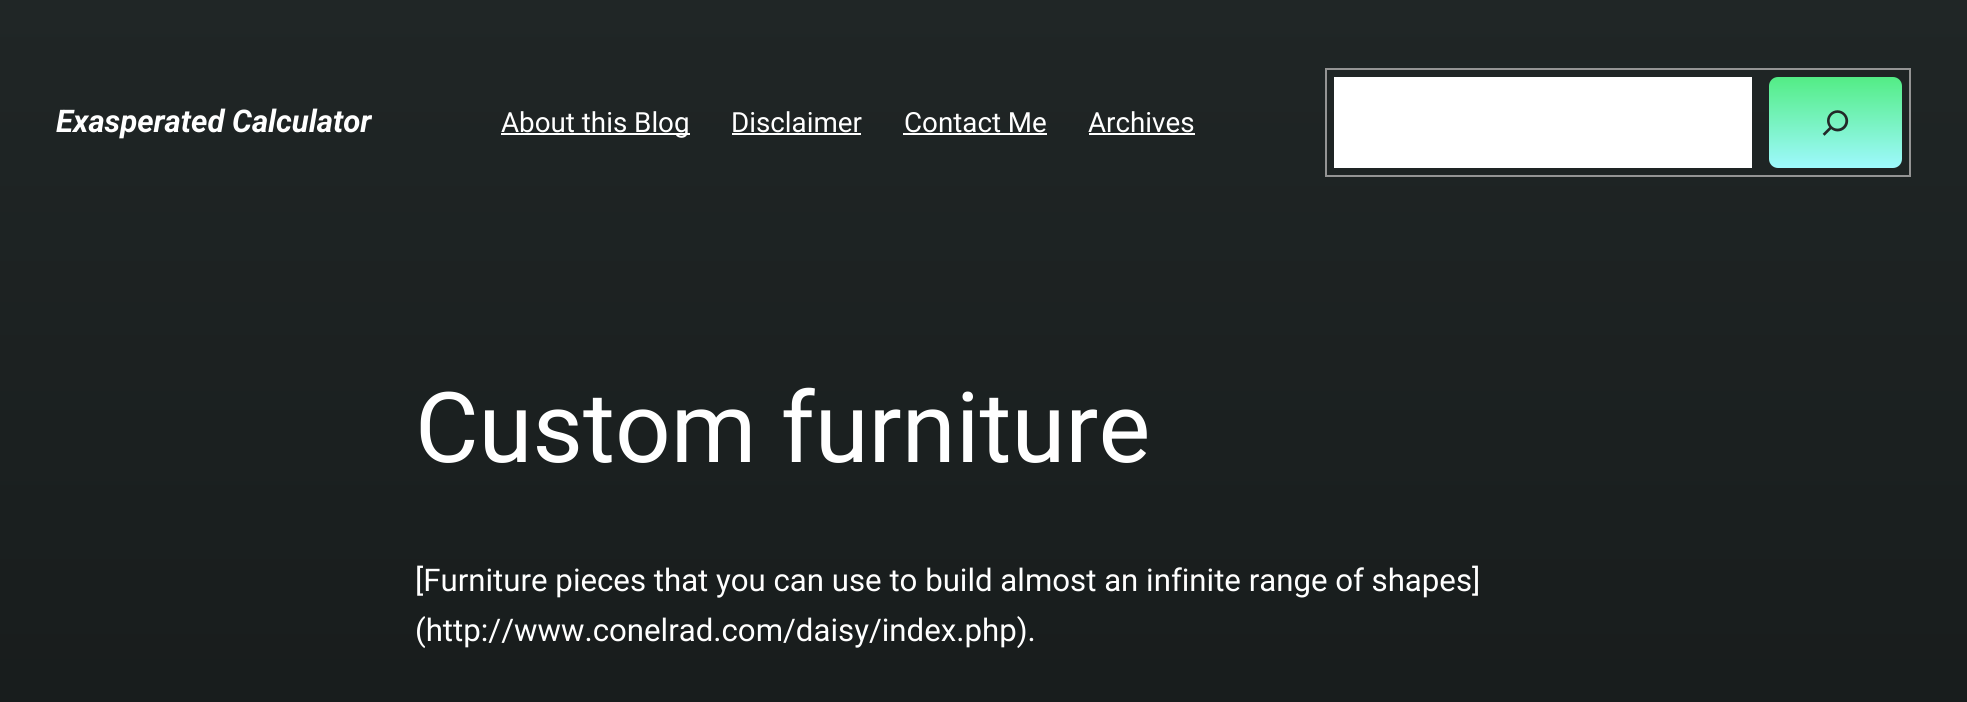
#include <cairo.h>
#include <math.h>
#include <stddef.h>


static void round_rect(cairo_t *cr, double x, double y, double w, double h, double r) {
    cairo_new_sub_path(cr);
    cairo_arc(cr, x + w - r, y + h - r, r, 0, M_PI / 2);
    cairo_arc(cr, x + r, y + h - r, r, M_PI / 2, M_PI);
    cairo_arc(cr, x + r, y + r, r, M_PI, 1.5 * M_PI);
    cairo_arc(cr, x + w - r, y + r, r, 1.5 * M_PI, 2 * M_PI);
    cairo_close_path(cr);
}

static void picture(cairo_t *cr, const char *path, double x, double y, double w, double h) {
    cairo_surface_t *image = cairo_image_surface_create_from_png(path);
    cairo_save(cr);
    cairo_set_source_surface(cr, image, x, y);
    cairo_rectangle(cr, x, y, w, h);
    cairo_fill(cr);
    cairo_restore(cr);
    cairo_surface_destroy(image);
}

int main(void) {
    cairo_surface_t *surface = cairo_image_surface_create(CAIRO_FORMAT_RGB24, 1967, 702);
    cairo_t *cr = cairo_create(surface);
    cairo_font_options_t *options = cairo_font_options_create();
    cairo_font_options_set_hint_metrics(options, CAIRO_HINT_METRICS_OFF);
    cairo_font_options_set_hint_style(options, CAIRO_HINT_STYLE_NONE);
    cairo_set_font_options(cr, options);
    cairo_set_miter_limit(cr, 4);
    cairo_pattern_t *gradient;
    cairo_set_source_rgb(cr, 1, 1, 1);
    cairo_paint(cr);
    gradient = cairo_pattern_create_linear(984, 0, 984, 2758);
    cairo_pattern_add_color_stop_rgba(gradient, 0, 0.125, 0.149, 0.149, 1);
    cairo_pattern_add_color_stop_rgba(gradient, 1, 0.004, 0.004, 0.004, 1);
    cairo_set_source(cr, gradient);
    cairo_pattern_destroy(gradient);
    cairo_rectangle(cr, 0, 0, 1967, 702);
    cairo_fill(cr);
    cairo_select_font_face(cr, "Roboto", CAIRO_FONT_SLANT_ITALIC, CAIRO_FONT_WEIGHT_BOLD);
    cairo_set_font_size(cr, 31.2);
    cairo_set_source_rgb(cr, 1, 1, 1);
    cairo_move_to(cr, 56, 132);
    cairo_show_text(cr, "Exasperated Calculator");
    cairo_rectangle(cr, 501, 133, 189, 2);
    cairo_fill(cr);
    cairo_select_font_face(cr, "Roboto", CAIRO_FONT_SLANT_NORMAL, CAIRO_FONT_WEIGHT_NORMAL);
    cairo_set_font_size(cr, 27.75);
    cairo_move_to(cr, 501, 132);
    cairo_show_text(cr, "About this Blog");
    cairo_move_to(cr, 731, 132);
    cairo_show_text(cr, "Disclaimer");
    cairo_rectangle(cr, 732, 133, 129, 2);
    cairo_fill(cr);
    cairo_move_to(cr, 904, 132);
    cairo_show_text(cr, "Contact Me");
    cairo_rectangle(cr, 903, 133, 144, 2);
    cairo_fill(cr);
    cairo_move_to(cr, 1088, 132);
    cairo_show_text(cr, "Archives");
    cairo_rectangle(cr, 1089, 133, 106, 2);
    cairo_fill(cr);
    cairo_rectangle(cr, 1326, 69, 584, 107);
    cairo_set_source_rgb(cr, 0.58, 0.58, 0.58);
    cairo_stroke(cr);
    cairo_set_source_rgb(cr, 1, 1, 1);
    cairo_rectangle(cr, 1334, 77, 418, 91);
    cairo_fill(cr);
    gradient = cairo_pattern_create_linear(1836, 77, 1836, 168);
    cairo_pattern_add_color_stop_rgba(gradient, 0, 0.325, 0.929, 0.522, 1);
    cairo_pattern_add_color_stop_rgba(gradient, 1, 0.62, 0.976, 0.992, 1);
    cairo_set_source(cr, gradient);
    cairo_pattern_destroy(gradient);
    round_rect(cr, 1769, 77, 133, 91, 9);
    cairo_fill(cr);
    picture(cr, "img1.png", 1822, 110, 27, 26);
    cairo_set_font_size(cr, 97.75);
    cairo_set_source_rgb(cr, 1, 1, 1);
    cairo_move_to(cr, 415, 462);
    cairo_show_text(cr, "Custom furniture");
    cairo_set_font_size(cr, 31.2);
    cairo_move_to(cr, 415, 591);
    cairo_show_text(cr, "[Furniture pieces that you can use to build almost an infinite range of shapes]");
    cairo_move_to(cr, 415, 641);
    cairo_show_text(cr, "(http://www.conelrad.com/daisy/index.php).");
    cairo_surface_write_to_png(surface, "page.png");
    cairo_font_options_destroy(options);
    cairo_destroy(cr);
    cairo_surface_destroy(surface);
    return 0;
}
